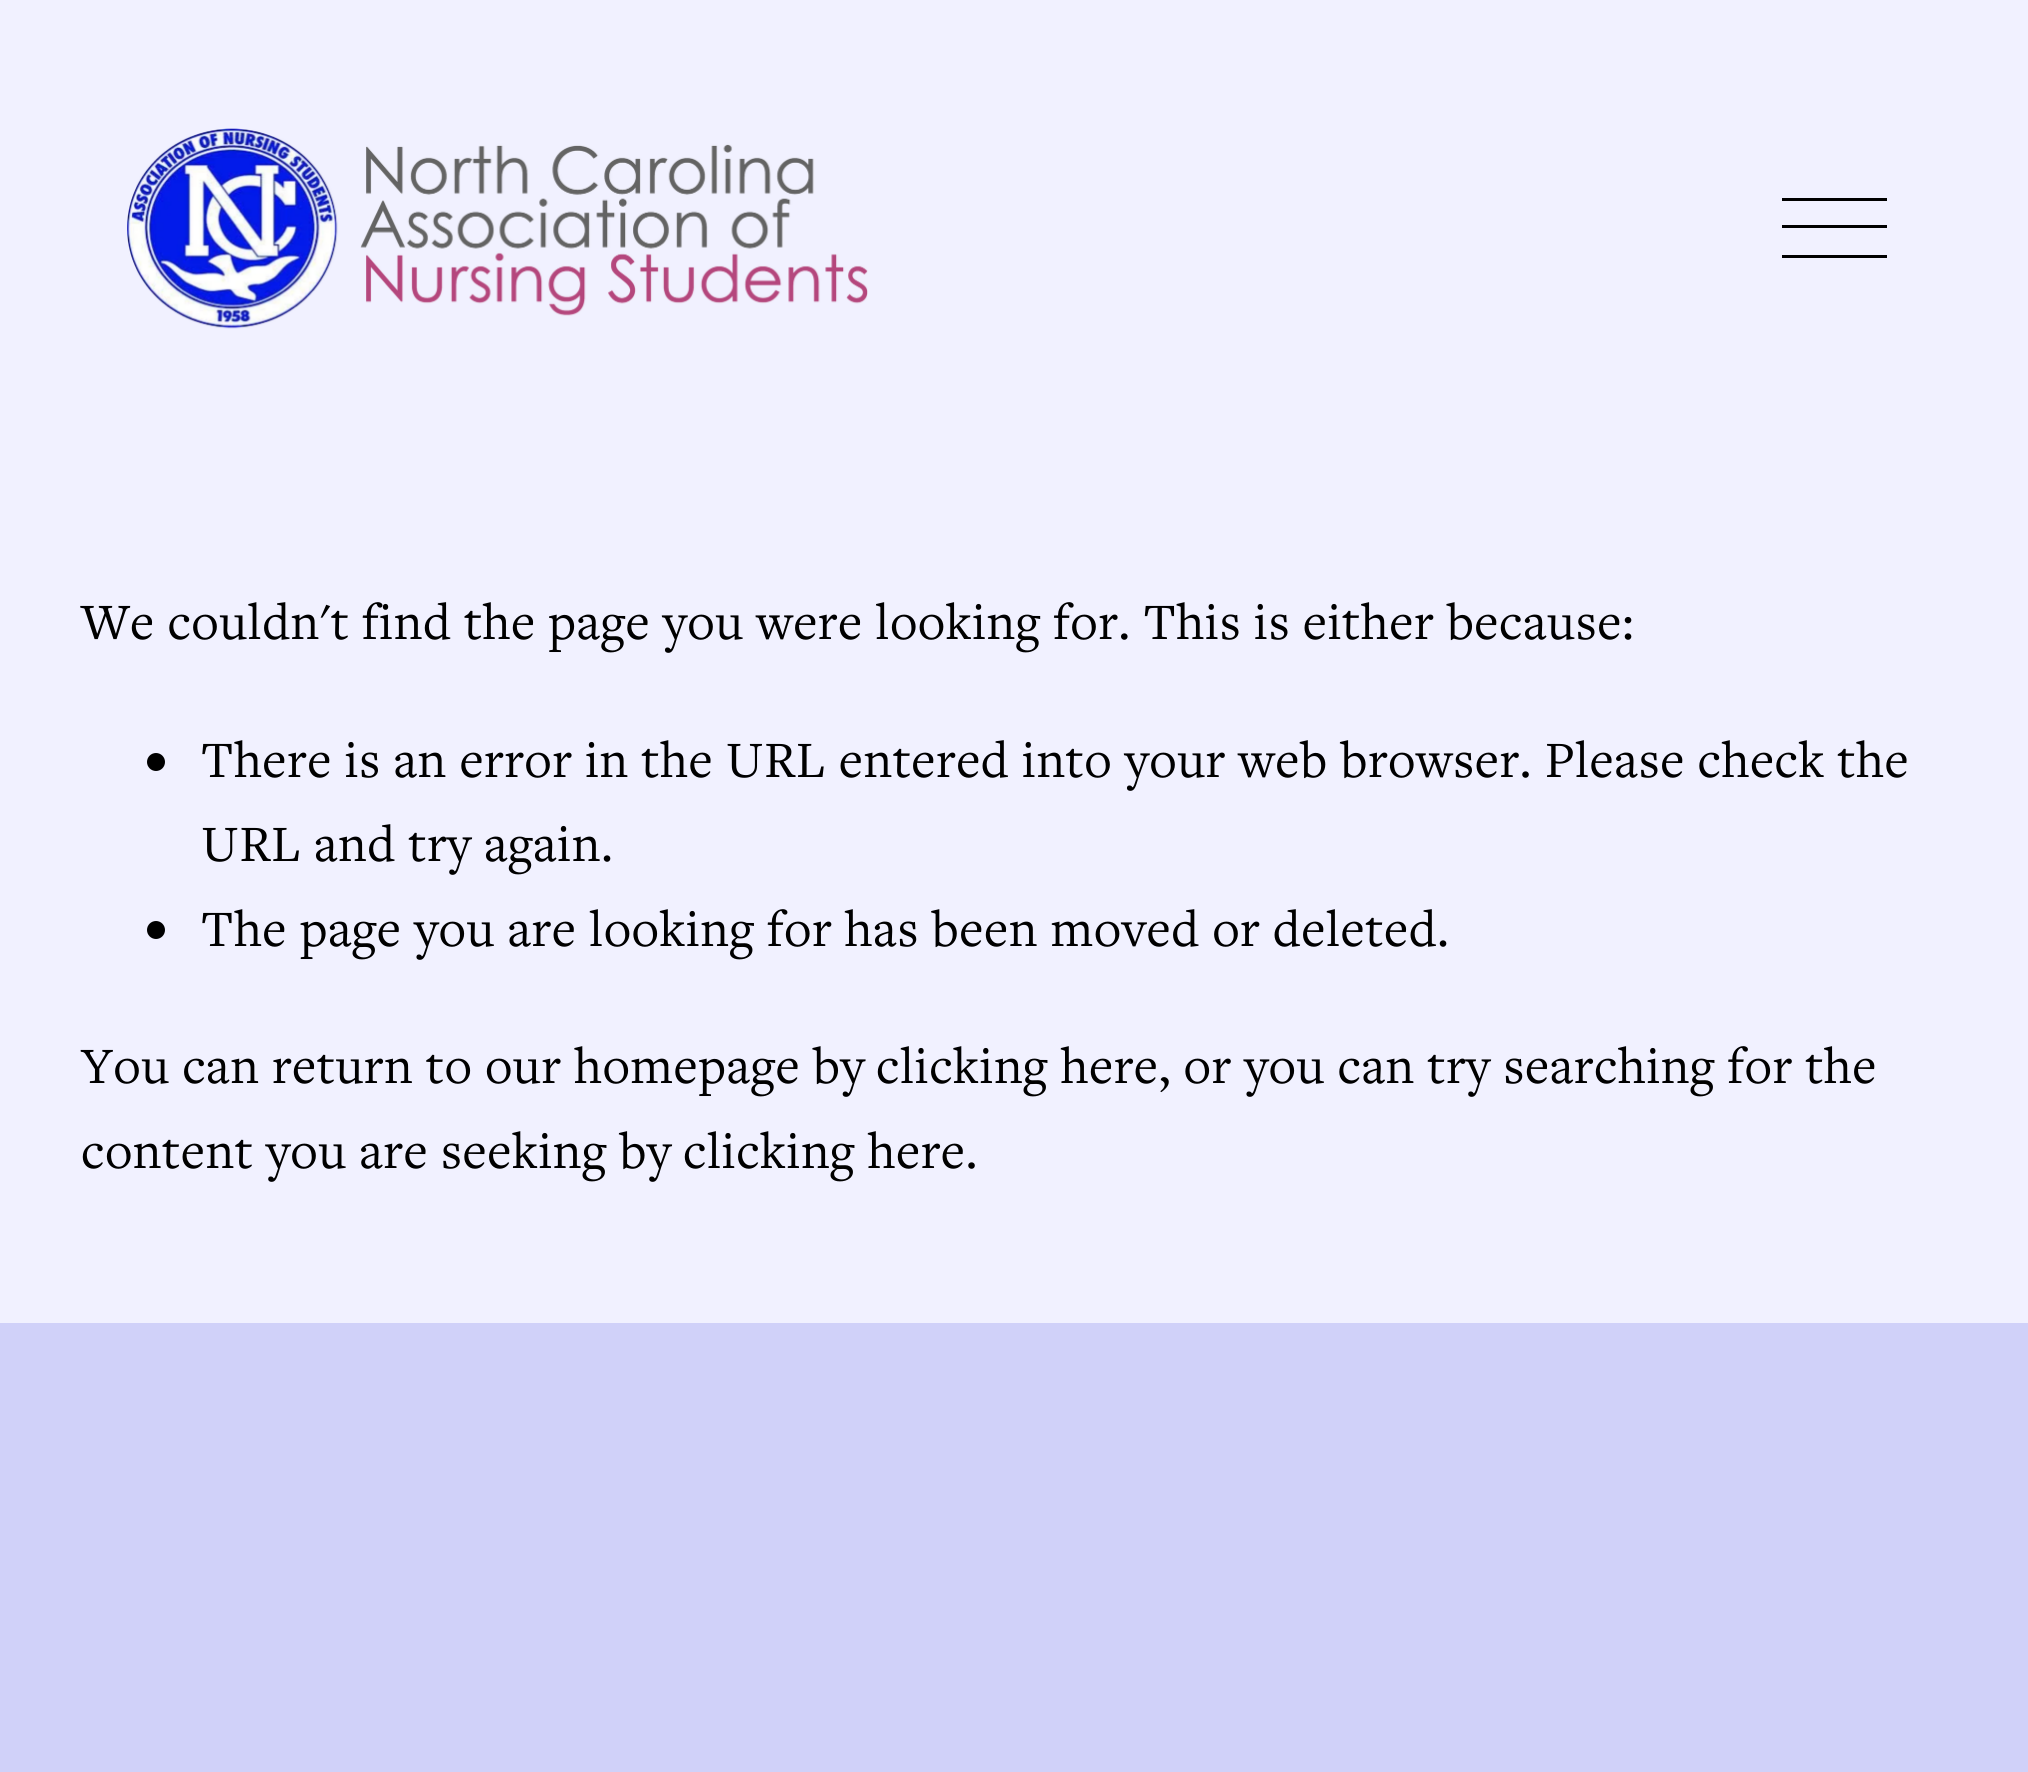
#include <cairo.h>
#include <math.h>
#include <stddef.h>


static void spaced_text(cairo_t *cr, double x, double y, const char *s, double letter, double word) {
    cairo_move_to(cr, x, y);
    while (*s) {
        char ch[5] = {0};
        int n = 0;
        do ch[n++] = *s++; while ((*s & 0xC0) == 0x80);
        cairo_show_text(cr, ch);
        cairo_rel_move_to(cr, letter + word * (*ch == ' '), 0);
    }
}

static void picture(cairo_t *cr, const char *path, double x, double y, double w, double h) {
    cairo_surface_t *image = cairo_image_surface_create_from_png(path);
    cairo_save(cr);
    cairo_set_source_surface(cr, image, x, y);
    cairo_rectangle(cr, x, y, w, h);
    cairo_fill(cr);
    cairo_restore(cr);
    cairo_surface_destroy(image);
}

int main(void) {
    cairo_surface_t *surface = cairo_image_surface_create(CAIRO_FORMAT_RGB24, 2028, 1772);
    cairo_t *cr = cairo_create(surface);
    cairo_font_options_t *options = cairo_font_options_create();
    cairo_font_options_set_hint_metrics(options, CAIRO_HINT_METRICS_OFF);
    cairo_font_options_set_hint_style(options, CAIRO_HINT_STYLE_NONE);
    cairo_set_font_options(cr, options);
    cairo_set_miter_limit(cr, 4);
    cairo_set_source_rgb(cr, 0.945, 0.945, 1);
    cairo_paint(cr);
    picture(cr, "img1.png", 127, 128, 741, 201);
    cairo_set_source_rgb(cr, 0, 0, 0);
    cairo_rectangle(cr, 1782, 198, 105, 3);
    cairo_fill(cr);
    cairo_rectangle(cr, 1782, 225, 105, 3);
    cairo_fill(cr);
    cairo_rectangle(cr, 1782, 255, 105, 3);
    cairo_fill(cr);
    cairo_select_font_face(cr, "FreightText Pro", CAIRO_FONT_SLANT_NORMAL, CAIRO_FONT_WEIGHT_NORMAL);
    cairo_set_font_size(cr, 52.9);
    spaced_text(cr, 81, 639, "We couldn't find the page you were looking for. This is either because:", 0.53, 0);
    cairo_new_path(cr);
    cairo_arc(cr, 156, 762, 9, 0, 2 * M_PI);
    cairo_fill(cr);
    spaced_text(cr, 201, 777, "There is an error in the URL entered into your web browser. Please check the", 0.53, 0);
    spaced_text(cr, 201, 861, "URL and try again.", 0.53, 0);
    cairo_new_path(cr);
    cairo_arc(cr, 156, 930, 9, 0, 2 * M_PI);
    cairo_fill(cr);
    spaced_text(cr, 201, 946, "The page you are looking for has been moved or deleted.", 0.53, 0);
    spaced_text(cr, 81, 1083, "You can return to our homepage by", 0.53, 0);
    spaced_text(cr, 876, 1083, "clicking here, or you can try searching for the", 0.53, 0);
    spaced_text(cr, 81, 1168, "content you are seeking by", 0.53, 0);
    spaced_text(cr, 683, 1168, "clicking here.", 0.53, 0);
    cairo_set_source_rgb(cr, 0.816, 0.82, 0.976);
    cairo_rectangle(cr, 0, 1323, 2028, 449);
    cairo_fill(cr);
    cairo_surface_write_to_png(surface, "page.png");
    cairo_font_options_destroy(options);
    cairo_destroy(cr);
    cairo_surface_destroy(surface);
    return 0;
}
